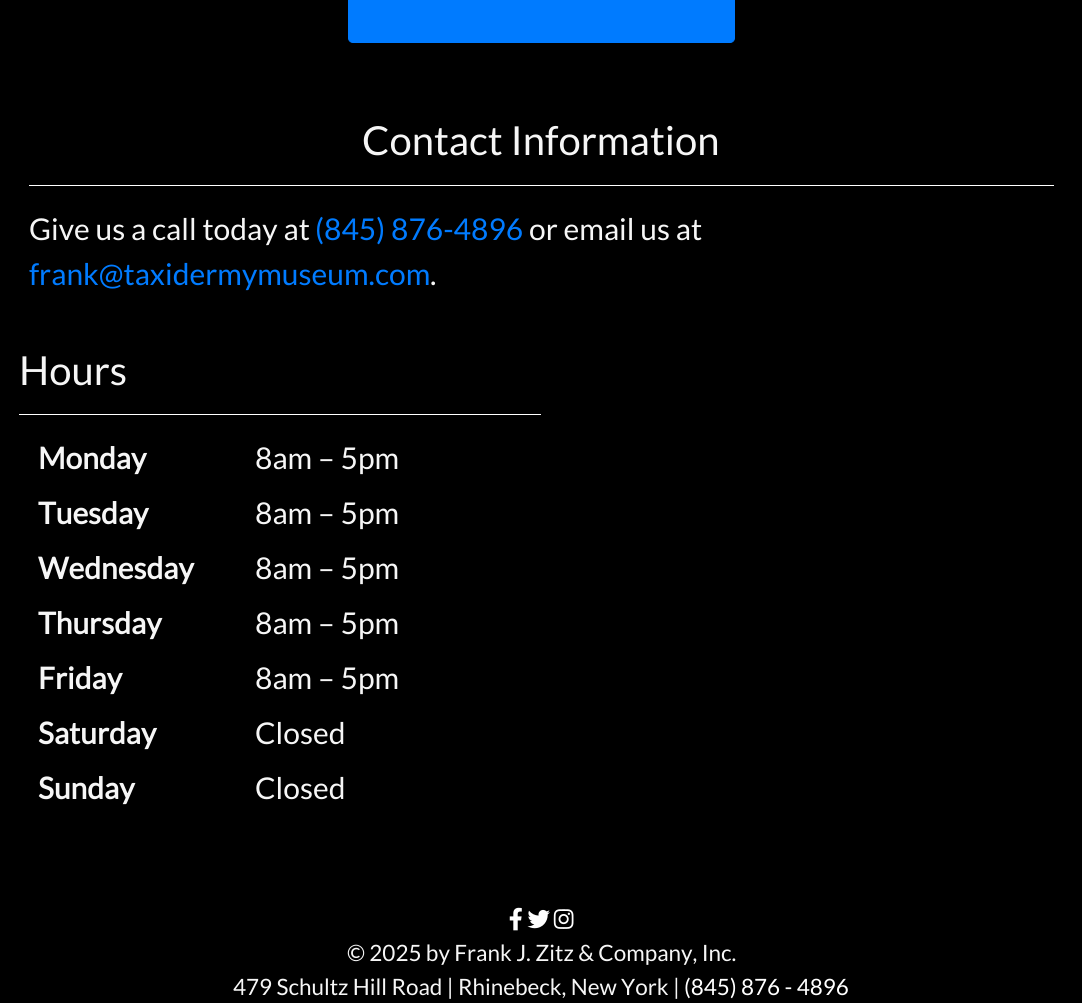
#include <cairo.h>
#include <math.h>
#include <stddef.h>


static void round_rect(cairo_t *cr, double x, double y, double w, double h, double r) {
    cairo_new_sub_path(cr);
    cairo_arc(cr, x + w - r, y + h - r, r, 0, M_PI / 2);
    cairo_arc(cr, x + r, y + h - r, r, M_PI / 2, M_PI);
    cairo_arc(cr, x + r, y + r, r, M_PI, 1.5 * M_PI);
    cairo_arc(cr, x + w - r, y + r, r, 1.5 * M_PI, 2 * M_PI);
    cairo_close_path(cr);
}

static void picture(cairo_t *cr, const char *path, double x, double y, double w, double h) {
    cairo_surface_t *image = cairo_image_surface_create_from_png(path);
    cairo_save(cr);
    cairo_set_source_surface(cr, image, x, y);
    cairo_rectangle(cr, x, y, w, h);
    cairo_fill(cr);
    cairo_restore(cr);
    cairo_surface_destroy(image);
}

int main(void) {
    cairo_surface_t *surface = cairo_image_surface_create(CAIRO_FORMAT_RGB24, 1082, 1003);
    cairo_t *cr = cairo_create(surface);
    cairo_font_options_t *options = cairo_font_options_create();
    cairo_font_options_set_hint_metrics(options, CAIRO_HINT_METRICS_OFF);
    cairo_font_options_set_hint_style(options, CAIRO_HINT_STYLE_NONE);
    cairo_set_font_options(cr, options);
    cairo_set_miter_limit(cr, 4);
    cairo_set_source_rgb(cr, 0, 0, 0);
    cairo_paint(cr);
    cairo_set_source_rgb(cr, 0, 0.482, 1);
    round_rect(cr, 348.5, -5.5, 386, 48, 4.5);
    cairo_fill_preserve(cr);
    cairo_set_line_width(cr, 1);
    cairo_stroke(cr);
    cairo_select_font_face(cr, "Lato", CAIRO_FONT_SLANT_NORMAL, CAIRO_FONT_WEIGHT_NORMAL);
    cairo_set_font_size(cr, 40);
    cairo_set_source_rgb(cr, 0.961, 0.961, 0.961);
    cairo_move_to(cr, 362, 155);
    cairo_show_text(cr, "Contact Information");
    cairo_set_source_rgb(cr, 1, 1, 1);
    cairo_rectangle(cr, 29, 185, 1025, 1);
    cairo_fill(cr);
    cairo_set_font_size(cr, 30);
    cairo_set_source_rgb(cr, 0.961, 0.961, 0.961);
    cairo_move_to(cr, 29, 240);
    cairo_show_text(cr, "Give us a call today at");
    cairo_set_source_rgb(cr, 0, 0.482, 1);
    cairo_move_to(cr, 315, 240);
    cairo_show_text(cr, "(845) 876-4896");
    cairo_set_source_rgb(cr, 0.961, 0.961, 0.961);
    cairo_move_to(cr, 529, 240);
    cairo_show_text(cr, "or email us at");
    cairo_set_source_rgb(cr, 0, 0.482, 1);
    cairo_move_to(cr, 29, 285);
    cairo_show_text(cr, "frank@taxidermymuseum.com");
    cairo_set_source_rgb(cr, 0.961, 0.961, 0.961);
    cairo_move_to(cr, 430, 285);
    cairo_show_text(cr, ".");
    cairo_set_font_size(cr, 40);
    cairo_move_to(cr, 19, 385);
    cairo_show_text(cr, "Hours");
    cairo_set_source_rgb(cr, 1, 1, 1);
    cairo_rectangle(cr, 19, 414, 522, 1);
    cairo_fill(cr);
    cairo_select_font_face(cr, "Lato", CAIRO_FONT_SLANT_NORMAL, CAIRO_FONT_WEIGHT_BOLD);
    cairo_set_font_size(cr, 30);
    cairo_set_source_rgb(cr, 0.961, 0.961, 0.961);
    cairo_move_to(cr, 38, 469);
    cairo_show_text(cr, "Monday");
    cairo_select_font_face(cr, "Lato", CAIRO_FONT_SLANT_NORMAL, CAIRO_FONT_WEIGHT_NORMAL);
    cairo_move_to(cr, 255, 469);
    cairo_show_text(cr, "8am – 5pm");
    cairo_select_font_face(cr, "Lato", CAIRO_FONT_SLANT_NORMAL, CAIRO_FONT_WEIGHT_BOLD);
    cairo_move_to(cr, 38, 524);
    cairo_show_text(cr, "Tuesday");
    cairo_select_font_face(cr, "Lato", CAIRO_FONT_SLANT_NORMAL, CAIRO_FONT_WEIGHT_NORMAL);
    cairo_move_to(cr, 255, 524);
    cairo_show_text(cr, "8am – 5pm");
    cairo_select_font_face(cr, "Lato", CAIRO_FONT_SLANT_NORMAL, CAIRO_FONT_WEIGHT_BOLD);
    cairo_move_to(cr, 38, 579);
    cairo_show_text(cr, "Wednesday");
    cairo_select_font_face(cr, "Lato", CAIRO_FONT_SLANT_NORMAL, CAIRO_FONT_WEIGHT_NORMAL);
    cairo_move_to(cr, 255, 579);
    cairo_show_text(cr, "8am – 5pm");
    cairo_select_font_face(cr, "Lato", CAIRO_FONT_SLANT_NORMAL, CAIRO_FONT_WEIGHT_BOLD);
    cairo_move_to(cr, 38, 634);
    cairo_show_text(cr, "Thursday");
    cairo_select_font_face(cr, "Lato", CAIRO_FONT_SLANT_NORMAL, CAIRO_FONT_WEIGHT_NORMAL);
    cairo_move_to(cr, 255, 634);
    cairo_show_text(cr, "8am – 5pm");
    cairo_select_font_face(cr, "Lato", CAIRO_FONT_SLANT_NORMAL, CAIRO_FONT_WEIGHT_BOLD);
    cairo_move_to(cr, 38, 689);
    cairo_show_text(cr, "Friday");
    cairo_select_font_face(cr, "Lato", CAIRO_FONT_SLANT_NORMAL, CAIRO_FONT_WEIGHT_NORMAL);
    cairo_move_to(cr, 255, 689);
    cairo_show_text(cr, "8am – 5pm");
    cairo_select_font_face(cr, "Lato", CAIRO_FONT_SLANT_NORMAL, CAIRO_FONT_WEIGHT_BOLD);
    cairo_move_to(cr, 38, 744);
    cairo_show_text(cr, "Saturday");
    cairo_select_font_face(cr, "Lato", CAIRO_FONT_SLANT_NORMAL, CAIRO_FONT_WEIGHT_NORMAL);
    cairo_move_to(cr, 255, 744);
    cairo_show_text(cr, "Closed");
    cairo_select_font_face(cr, "Lato", CAIRO_FONT_SLANT_NORMAL, CAIRO_FONT_WEIGHT_BOLD);
    cairo_move_to(cr, 38, 799);
    cairo_show_text(cr, "Sunday");
    cairo_select_font_face(cr, "Lato", CAIRO_FONT_SLANT_NORMAL, CAIRO_FONT_WEIGHT_NORMAL);
    cairo_move_to(cr, 255, 799);
    cairo_show_text(cr, "Closed");
    picture(cr, "img1.png", 509, 907, 13, 24);
    picture(cr, "img2.png", 527, 909, 23, 20);
    picture(cr, "img3.png", 553, 909, 21, 20);
    cairo_set_font_size(cr, 22.5);
    cairo_move_to(cr, 347, 961);
    cairo_show_text(cr, "© 2025 by Frank J. Zitz & Company, Inc.");
    cairo_move_to(cr, 233, 995);
    cairo_show_text(cr, "479 Schultz Hill Road | Rhinebeck, New York |");
    cairo_set_source_rgb(cr, 1, 1, 1);
    cairo_move_to(cr, 684, 995);
    cairo_show_text(cr, "(845) 876 - 4896");
    cairo_surface_write_to_png(surface, "page.png");
    cairo_font_options_destroy(options);
    cairo_destroy(cr);
    cairo_surface_destroy(surface);
    return 0;
}
